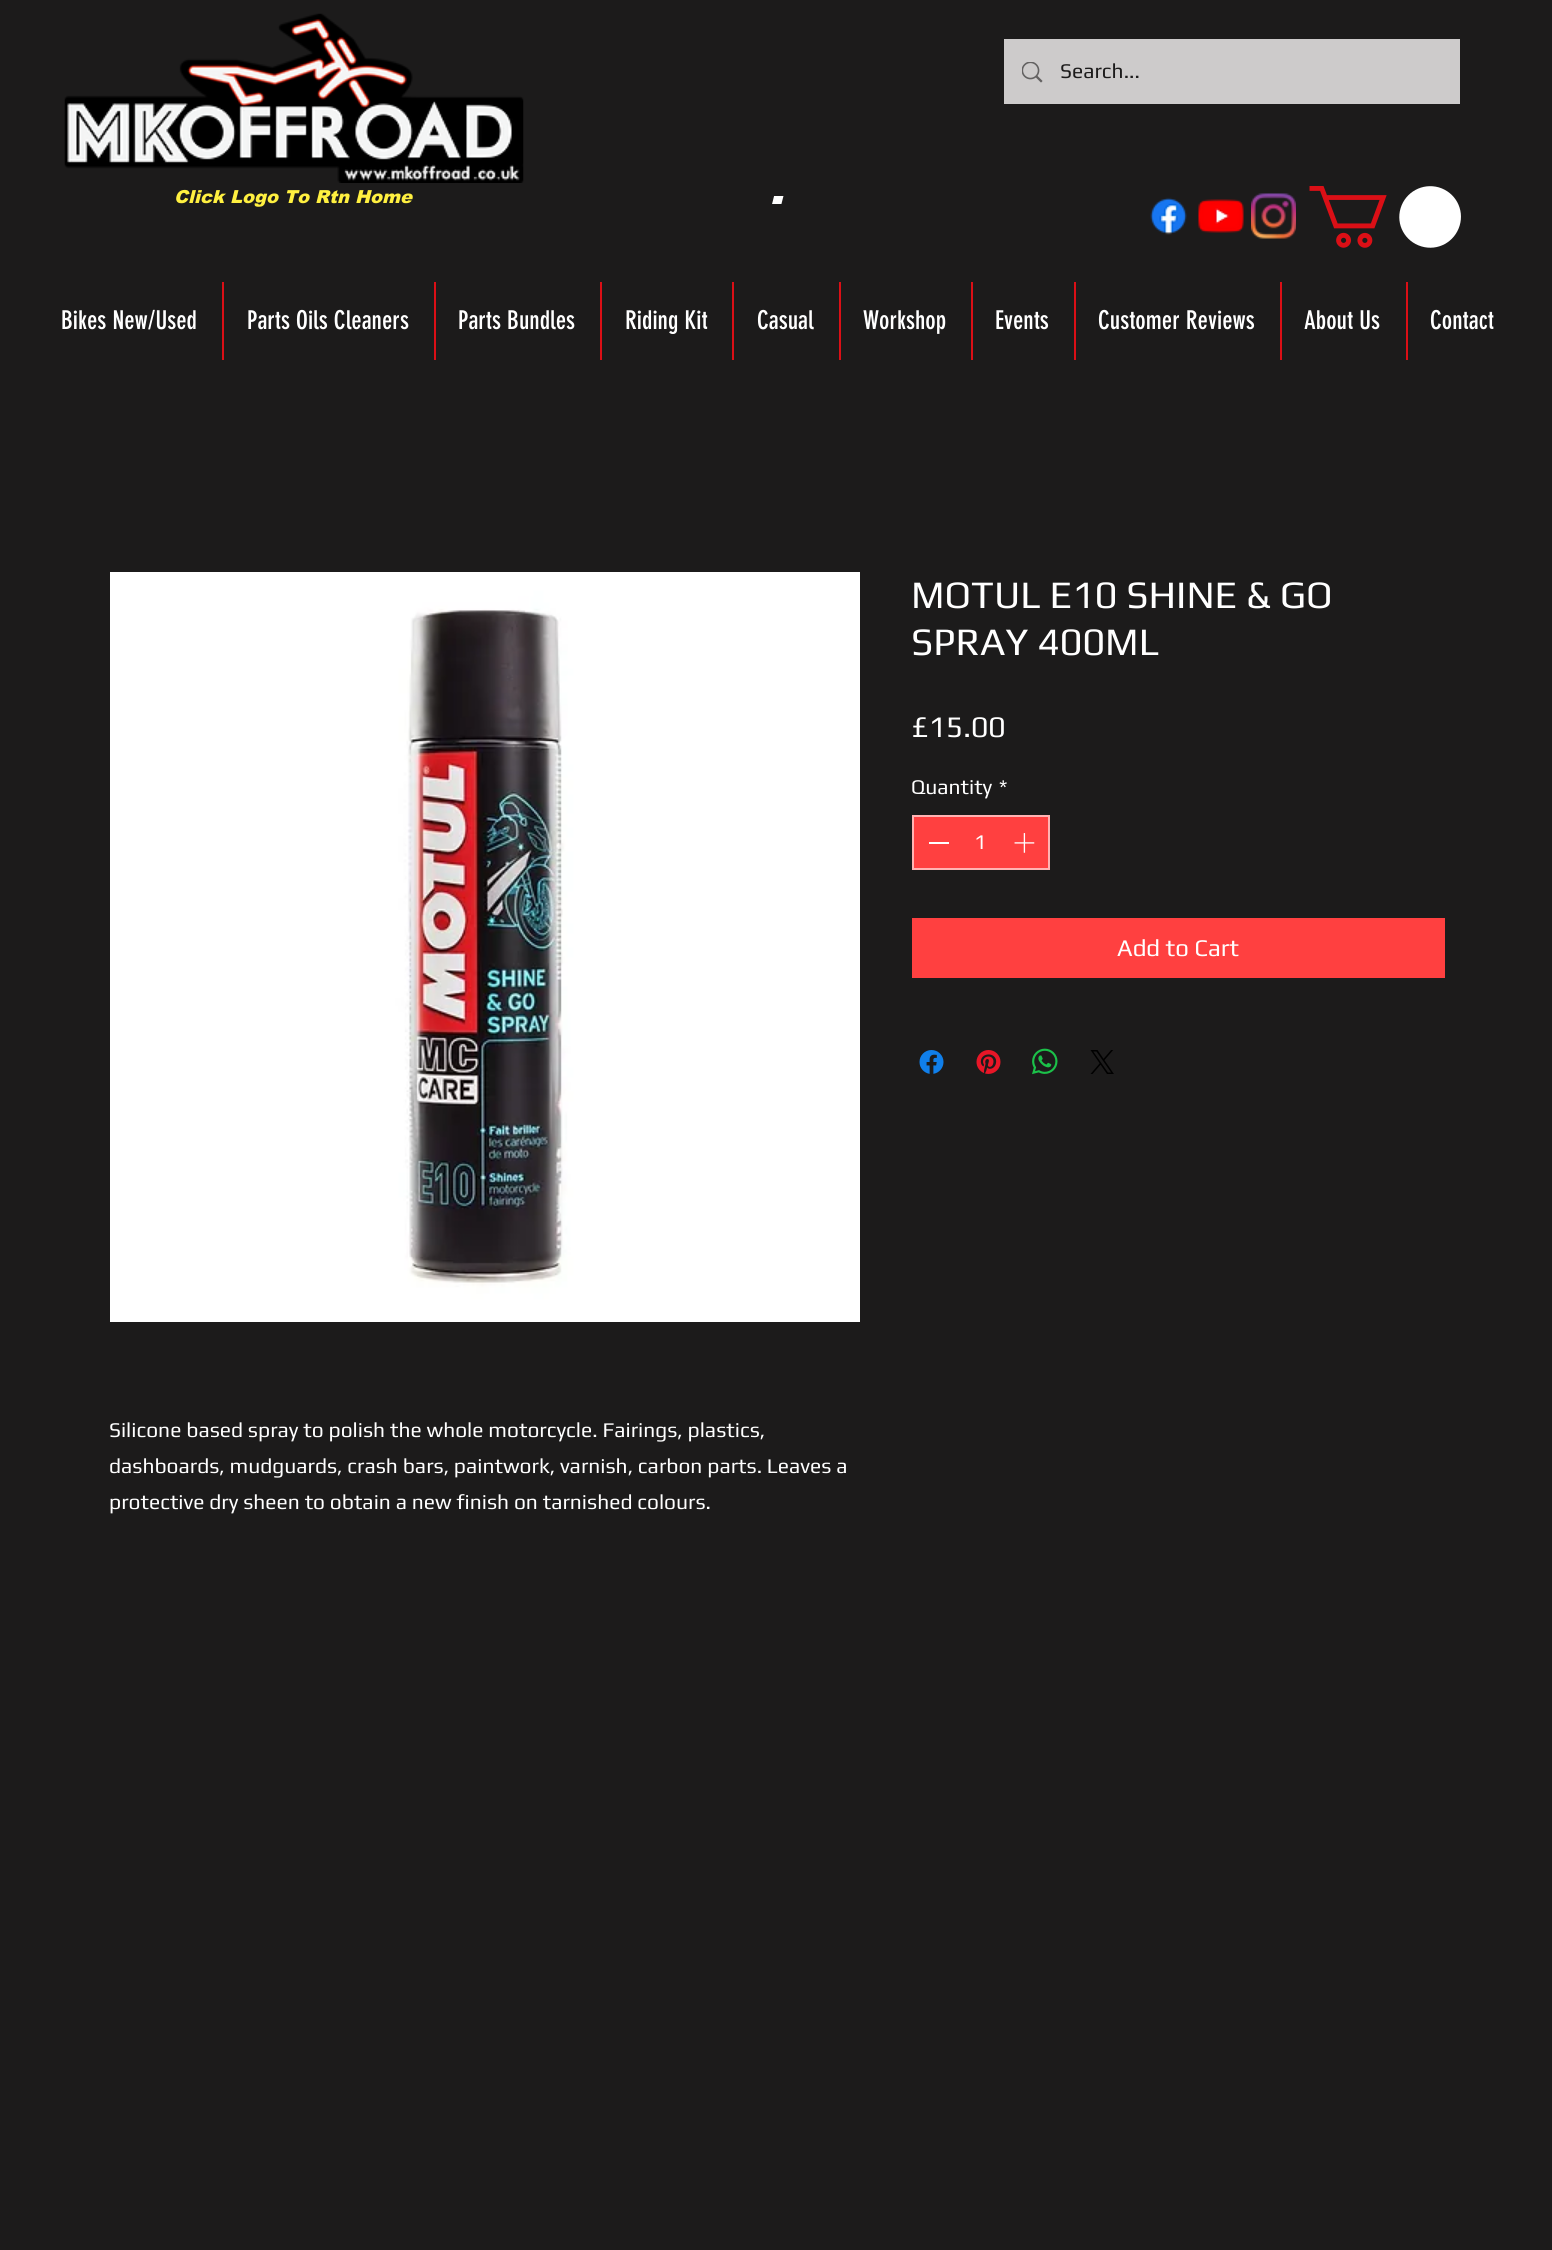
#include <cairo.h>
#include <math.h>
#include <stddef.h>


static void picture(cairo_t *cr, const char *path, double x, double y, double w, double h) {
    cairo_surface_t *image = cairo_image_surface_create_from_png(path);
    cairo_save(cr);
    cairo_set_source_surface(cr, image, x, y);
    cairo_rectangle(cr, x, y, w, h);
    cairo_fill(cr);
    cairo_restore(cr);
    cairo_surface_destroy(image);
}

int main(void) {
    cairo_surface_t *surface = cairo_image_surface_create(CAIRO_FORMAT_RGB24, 1552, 2250);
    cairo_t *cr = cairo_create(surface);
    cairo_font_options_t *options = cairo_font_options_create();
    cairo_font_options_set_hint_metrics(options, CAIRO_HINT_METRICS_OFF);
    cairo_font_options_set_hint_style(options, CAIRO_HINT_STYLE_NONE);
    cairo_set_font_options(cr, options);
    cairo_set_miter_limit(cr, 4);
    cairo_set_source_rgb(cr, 0.11, 0.106, 0.106);
    cairo_paint(cr);
    picture(cr, "img1.png", 64, 13, 460, 170);
    cairo_set_source_rgb(cr, 0.804, 0.796, 0.796);
    cairo_rectangle(cr, 1004, 39, 456, 65);
    cairo_fill(cr);
    picture(cr, "img2.png", 1022, 62, 21, 21);
    cairo_select_font_face(cr, "Play", CAIRO_FONT_SLANT_NORMAL, CAIRO_FONT_WEIGHT_NORMAL);
    cairo_set_font_size(cr, 21);
    cairo_set_source_rgb(cr, 0.11, 0.106, 0.106);
    cairo_move_to(cr, 1060, 78);
    cairo_show_text(cr, "Search...");
    cairo_select_font_face(cr, "arial Black", CAIRO_FONT_SLANT_ITALIC, CAIRO_FONT_WEIGHT_NORMAL);
    cairo_set_font_size(cr, 18);
    cairo_set_source_rgb(cr, 1, 0.941, 0.251);
    cairo_move_to(cr, 174, 203);
    cairo_show_text(cr, "Click Logo To Rtn Home");
    cairo_select_font_face(cr, "Anton", CAIRO_FONT_SLANT_ITALIC, CAIRO_FONT_WEIGHT_BOLD);
    cairo_set_font_size(cr, 46);
    cairo_set_source_rgb(cr, 1, 1, 1);
    cairo_move_to(cr, 771, 204);
    cairo_show_text(cr, ".");
    picture(cr, "img3.png", 1150, 197, 37, 38);
    picture(cr, "img4.png", 1198, 199, 46, 34);
    picture(cr, "img5.png", 1251, 193, 45, 46);
    picture(cr, "img6.png", 1309, 186, 152, 62);
    cairo_select_font_face(cr, "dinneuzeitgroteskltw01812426", CAIRO_FONT_SLANT_NORMAL, CAIRO_FONT_WEIGHT_NORMAL);
    cairo_set_font_size(cr, 25.5);
    cairo_move_to(cr, 61, 329);
    cairo_show_text(cr, "Bikes New/Used");
    cairo_set_source_rgb(cr, 0.859, 0.059, 0.086);
    cairo_rectangle(cr, 222, 282, 2, 78);
    cairo_fill(cr);
    cairo_set_source_rgb(cr, 1, 1, 1);
    cairo_move_to(cr, 247, 329);
    cairo_show_text(cr, "Parts Oils Cleaners");
    cairo_set_source_rgb(cr, 0.859, 0.059, 0.086);
    cairo_rectangle(cr, 434, 282, 2, 78);
    cairo_fill(cr);
    cairo_set_source_rgb(cr, 1, 1, 1);
    cairo_move_to(cr, 458, 329);
    cairo_show_text(cr, "Parts Bundles");
    cairo_set_source_rgb(cr, 0.859, 0.059, 0.086);
    cairo_rectangle(cr, 600, 282, 2, 78);
    cairo_fill(cr);
    cairo_set_source_rgb(cr, 1, 1, 1);
    cairo_move_to(cr, 625, 329);
    cairo_show_text(cr, "Riding Kit");
    cairo_set_source_rgb(cr, 0.859, 0.059, 0.086);
    cairo_rectangle(cr, 732, 282, 2, 78);
    cairo_fill(cr);
    cairo_set_source_rgb(cr, 1, 1, 1);
    cairo_move_to(cr, 757, 329);
    cairo_show_text(cr, "Casual");
    cairo_set_source_rgb(cr, 0.859, 0.059, 0.086);
    cairo_rectangle(cr, 839, 282, 2, 78);
    cairo_fill(cr);
    cairo_set_source_rgb(cr, 1, 1, 1);
    cairo_move_to(cr, 863, 329);
    cairo_show_text(cr, "Workshop");
    cairo_set_source_rgb(cr, 0.859, 0.059, 0.086);
    cairo_rectangle(cr, 971, 282, 2, 78);
    cairo_fill(cr);
    cairo_set_source_rgb(cr, 1, 1, 1);
    cairo_move_to(cr, 995, 329);
    cairo_show_text(cr, "Events");
    cairo_set_source_rgb(cr, 0.859, 0.059, 0.086);
    cairo_rectangle(cr, 1074, 282, 2, 78);
    cairo_fill(cr);
    cairo_set_source_rgb(cr, 1, 1, 1);
    cairo_move_to(cr, 1098, 329);
    cairo_show_text(cr, "Customer Reviews");
    cairo_set_source_rgb(cr, 0.859, 0.059, 0.086);
    cairo_rectangle(cr, 1280, 282, 2, 78);
    cairo_fill(cr);
    cairo_set_source_rgb(cr, 1, 1, 1);
    cairo_move_to(cr, 1304, 329);
    cairo_show_text(cr, "About Us");
    cairo_set_source_rgb(cr, 0.859, 0.059, 0.086);
    cairo_rectangle(cr, 1406, 282, 2, 78);
    cairo_fill(cr);
    cairo_set_source_rgb(cr, 1, 1, 1);
    cairo_move_to(cr, 1430, 329);
    cairo_show_text(cr, "Contact");
    cairo_select_font_face(cr, "Play", CAIRO_FONT_SLANT_NORMAL, CAIRO_FONT_WEIGHT_NORMAL);
    cairo_set_font_size(cr, 39);
    cairo_move_to(cr, 911, 608);
    cairo_show_text(cr, "MOTUL E10 SHINE & GO");
    cairo_move_to(cr, 911, 655);
    cairo_show_text(cr, "SPRAY 400ML");
    cairo_set_font_size(cr, 30);
    cairo_move_to(cr, 911, 737);
    cairo_show_text(cr, "£15.00");
    cairo_set_font_size(cr, 21);
    cairo_move_to(cr, 911, 794);
    cairo_show_text(cr, "Quantity");
    cairo_move_to(cr, 999, 794);
    cairo_show_text(cr, "*");
    cairo_set_source_rgb(cr, 1, 0.251, 0.251);
    cairo_rectangle(cr, 913, 816, 136, 53);
    cairo_fill_preserve(cr);
    cairo_set_source_rgb(cr, 1, 0.702, 0.702);
    cairo_stroke(cr);
    cairo_set_source_rgb(cr, 1, 1, 1);
    cairo_rectangle(cr, 929, 842, 20, 2);
    cairo_fill(cr);
    cairo_move_to(cr, 974, 849);
    cairo_show_text(cr, "1");
    picture(cr, "img7.png", 1014, 833, 21, 20);
    cairo_set_source_rgb(cr, 1, 0.251, 0.251);
    cairo_rectangle(cr, 912, 918, 533, 60);
    cairo_fill(cr);
    cairo_set_font_size(cr, 24);
    cairo_set_source_rgb(cr, 1, 1, 1);
    cairo_move_to(cr, 1117, 956);
    cairo_show_text(cr, "Add to Cart");
    picture(cr, "img8.png", 919, 1050, 25, 24);
    picture(cr, "img9.png", 976, 1050, 25, 24);
    picture(cr, "img10.png", 1032, 1048, 26, 27);
    picture(cr, "img11.png", 1090, 1050, 24, 24);
    cairo_rectangle(cr, 111, 573, 748, 748);
    cairo_stroke(cr);
    picture(cr, "img12.png", 112, 574, 746, 746);
    cairo_set_font_size(cr, 21);
    cairo_move_to(cr, 109, 1437);
    cairo_show_text(cr, "Silicone based spray to polish the whole motorcycle. Fairings, plastics,");
    cairo_move_to(cr, 109, 1473);
    cairo_show_text(cr, "dashboards, mudguards, crash bars, paintwork, varnish, carbon parts. Leaves a");
    cairo_move_to(cr, 109, 1509);
    cairo_show_text(cr, "protective dry sheen to obtain a new finish on tarnished colours.");
    cairo_surface_write_to_png(surface, "page.png");
    cairo_font_options_destroy(options);
    cairo_destroy(cr);
    cairo_surface_destroy(surface);
    return 0;
}
